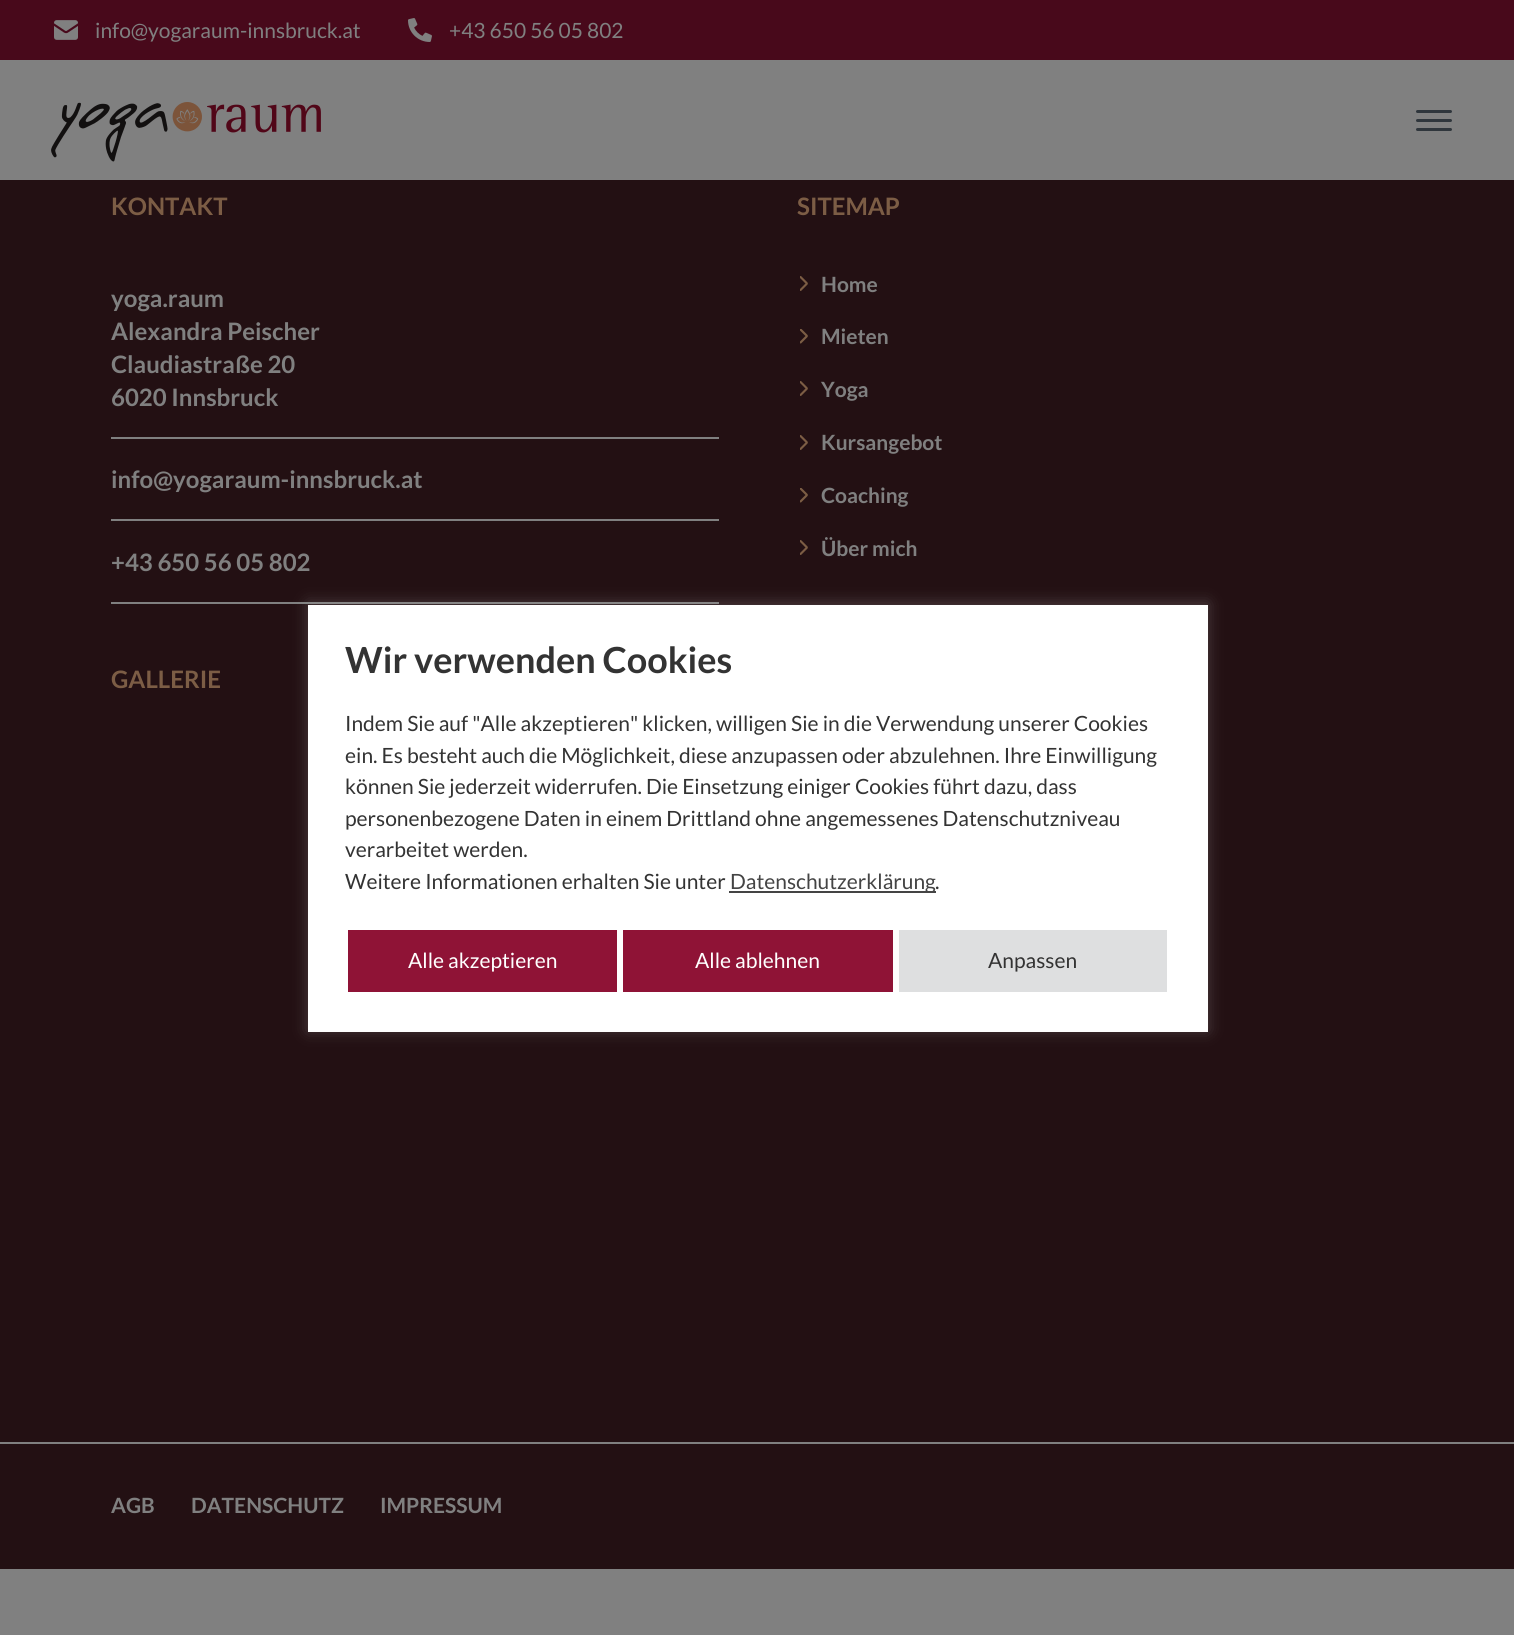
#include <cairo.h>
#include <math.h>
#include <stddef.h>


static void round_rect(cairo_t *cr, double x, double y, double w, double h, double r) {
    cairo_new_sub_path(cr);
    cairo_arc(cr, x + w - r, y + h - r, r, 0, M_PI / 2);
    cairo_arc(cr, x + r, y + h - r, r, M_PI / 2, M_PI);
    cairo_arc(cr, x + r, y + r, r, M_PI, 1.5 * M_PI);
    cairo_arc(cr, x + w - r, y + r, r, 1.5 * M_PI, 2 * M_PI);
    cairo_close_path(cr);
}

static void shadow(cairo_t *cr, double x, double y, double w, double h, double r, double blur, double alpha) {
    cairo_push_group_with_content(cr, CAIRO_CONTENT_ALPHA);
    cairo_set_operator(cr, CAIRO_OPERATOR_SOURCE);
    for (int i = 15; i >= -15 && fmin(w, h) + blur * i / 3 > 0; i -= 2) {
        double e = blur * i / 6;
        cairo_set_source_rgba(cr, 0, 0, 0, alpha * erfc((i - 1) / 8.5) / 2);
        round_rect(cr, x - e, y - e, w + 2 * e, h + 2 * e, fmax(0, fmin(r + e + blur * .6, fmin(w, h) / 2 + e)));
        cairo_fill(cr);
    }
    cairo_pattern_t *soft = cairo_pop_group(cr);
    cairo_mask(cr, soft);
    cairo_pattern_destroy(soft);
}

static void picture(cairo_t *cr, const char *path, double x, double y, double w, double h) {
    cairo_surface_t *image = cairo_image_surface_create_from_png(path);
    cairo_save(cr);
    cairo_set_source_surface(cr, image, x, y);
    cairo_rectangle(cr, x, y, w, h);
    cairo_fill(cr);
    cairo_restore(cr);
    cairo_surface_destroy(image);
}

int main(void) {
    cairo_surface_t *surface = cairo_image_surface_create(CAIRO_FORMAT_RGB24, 1514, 1635);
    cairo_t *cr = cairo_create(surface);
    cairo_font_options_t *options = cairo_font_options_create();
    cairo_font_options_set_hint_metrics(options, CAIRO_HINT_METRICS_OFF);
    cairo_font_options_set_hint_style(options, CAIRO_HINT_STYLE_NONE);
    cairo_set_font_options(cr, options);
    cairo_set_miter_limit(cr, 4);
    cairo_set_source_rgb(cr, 0.502, 0.502, 0.502);
    cairo_paint(cr);
    cairo_set_source_rgb(cr, 0.282, 0.039, 0.106);
    cairo_rectangle(cr, 0, 0, 1514, 60);
    cairo_fill(cr);
    picture(cr, "img1.png", 54, 20, 24, 20);
    cairo_select_font_face(cr, "Lato", CAIRO_FONT_SLANT_NORMAL, CAIRO_FONT_WEIGHT_NORMAL);
    cairo_set_font_size(cr, 21);
    cairo_set_source_rgb(cr, 0.502, 0.502, 0.502);
    cairo_move_to(cr, 95, 38);
    cairo_show_text(cr, "info@yogaraum-innsbruck.at");
    picture(cr, "img2.png", 408, 18, 24, 24);
    cairo_move_to(cr, 449, 38);
    cairo_show_text(cr, "+43 650 56 05 802");
    picture(cr, "img3.png", 51, 102, 270, 60);
    cairo_set_source_rgb(cr, 0.184, 0.212, 0.235);
    round_rect(cr, 1416, 110, 36, 3, 1.5);
    cairo_fill(cr);
    round_rect(cr, 1416, 119, 36, 3, 1.5);
    cairo_fill(cr);
    round_rect(cr, 1416, 128, 36, 3, 1.5);
    cairo_fill(cr);
    cairo_set_source_rgb(cr, 0.137, 0.063, 0.078);
    cairo_rectangle(cr, 0, 180, 1514, 1262);
    cairo_fill(cr);
    cairo_select_font_face(cr, "Lato", CAIRO_FONT_SLANT_NORMAL, CAIRO_FONT_WEIGHT_BOLD);
    cairo_set_font_size(cr, 24);
    cairo_set_source_rgb(cr, 0.486, 0.365, 0.271);
    cairo_move_to(cr, 111, 215);
    cairo_show_text(cr, "KONTAKT");
    cairo_set_source_rgb(cr, 0.502, 0.502, 0.502);
    cairo_rectangle(cr, 111, 437, 608, 2);
    cairo_fill(cr);
    cairo_move_to(cr, 111, 307);
    cairo_show_text(cr, "yoga.raum");
    cairo_move_to(cr, 111, 340);
    cairo_show_text(cr, "Alexandra Peischer");
    cairo_move_to(cr, 111, 373);
    cairo_show_text(cr, "Claudiastraße 20");
    cairo_move_to(cr, 111, 406);
    cairo_show_text(cr, "6020 Innsbruck");
    cairo_rectangle(cr, 111, 519, 608, 2);
    cairo_fill(cr);
    cairo_move_to(cr, 111, 488);
    cairo_show_text(cr, "info@yogaraum-innsbruck.at");
    cairo_rectangle(cr, 111, 602, 608, 2);
    cairo_fill(cr);
    cairo_move_to(cr, 111, 571);
    cairo_show_text(cr, "+43 650 56 05 802");
    cairo_set_source_rgb(cr, 0.486, 0.365, 0.271);
    cairo_move_to(cr, 797, 215);
    cairo_show_text(cr, "SITEMAP");
    picture(cr, "img4.png", 800, 276, 8, 15);
    cairo_set_font_size(cr, 21);
    cairo_set_source_rgb(cr, 0.502, 0.502, 0.502);
    cairo_move_to(cr, 821, 292);
    cairo_show_text(cr, "Home");
    picture(cr, "img5.png", 800, 329, 8, 15);
    cairo_move_to(cr, 821, 344);
    cairo_show_text(cr, "Mieten");
    picture(cr, "img4.png", 800, 381, 8, 15);
    cairo_move_to(cr, 821, 397);
    cairo_show_text(cr, "Yoga");
    picture(cr, "img4.png", 800, 435, 8, 15);
    cairo_move_to(cr, 821, 450);
    cairo_show_text(cr, "Kursangebot");
    picture(cr, "img5.png", 800, 488, 8, 15);
    cairo_move_to(cr, 821, 503);
    cairo_show_text(cr, "Coaching");
    picture(cr, "img4.png", 800, 540, 8, 15);
    cairo_move_to(cr, 821, 556);
    cairo_show_text(cr, "Über mich");
    cairo_set_font_size(cr, 24);
    cairo_set_source_rgb(cr, 0.486, 0.365, 0.271);
    cairo_move_to(cr, 111, 688);
    cairo_show_text(cr, "GALLERIE");
    cairo_set_source_rgb(cr, 0.137, 0.063, 0.078);
    cairo_rectangle(cr, 0, 1444, 1514, 125);
    cairo_fill(cr);
    cairo_set_font_size(cr, 21);
    cairo_set_source_rgb(cr, 0.502, 0.502, 0.502);
    cairo_move_to(cr, 111, 1513);
    cairo_show_text(cr, "AGB");
    cairo_move_to(cr, 191, 1513);
    cairo_show_text(cr, "DATENSCHUTZ");
    cairo_move_to(cr, 380, 1513);
    cairo_show_text(cr, "IMPRESSUM");
    cairo_set_source_rgb(cr, 0.675, 0.671, 0.671);
    shadow(cr, 308, 603, 900, 428, 0, 7.5, 0.3);
    cairo_set_source_rgb(cr, 1, 1, 1);
    cairo_rectangle(cr, 308, 605, 900, 427);
    cairo_fill(cr);
    cairo_set_font_size(cr, 36);
    cairo_set_source_rgb(cr, 0.2, 0.2, 0.2);
    cairo_move_to(cr, 345, 673);
    cairo_show_text(cr, "Wir verwenden Cookies");
    cairo_select_font_face(cr, "Lato", CAIRO_FONT_SLANT_NORMAL, CAIRO_FONT_WEIGHT_NORMAL);
    cairo_set_font_size(cr, 21);
    cairo_move_to(cr, 345, 731);
    cairo_show_text(cr, "Indem Sie auf \"Alle akzeptieren\" klicken, willigen Sie in die Verwendung unserer Cookies");
    cairo_move_to(cr, 345, 763);
    cairo_show_text(cr, "ein. Es besteht auch die Möglichkeit, diese anzupassen oder abzulehnen. Ihre Einwilligung");
    cairo_move_to(cr, 345, 794);
    cairo_show_text(cr, "können Sie jederzeit widerrufen. Die Einsetzung einiger Cookies führt dazu, dass");
    cairo_move_to(cr, 345, 826);
    cairo_show_text(cr, "personenbezogene Daten in einem Drittland ohne angemessenes Datenschutzniveau");
    cairo_move_to(cr, 345, 857);
    cairo_show_text(cr, "verarbeitet werden.");
    cairo_move_to(cr, 345, 889);
    cairo_show_text(cr, "Weitere Informationen erhalten Sie unter");
    cairo_set_source_rgb(cr, 0.267, 0.267, 0.267);
    cairo_rectangle(cr, 729, 891, 207, 2);
    cairo_fill(cr);
    cairo_move_to(cr, 730, 889);
    cairo_show_text(cr, "Datenschutzerklärung");
    cairo_set_source_rgb(cr, 0.2, 0.2, 0.2);
    cairo_move_to(cr, 935, 889);
    cairo_show_text(cr, ".");
    cairo_set_source_rgb(cr, 0.561, 0.075, 0.212);
    cairo_rectangle(cr, 348, 930, 269, 62);
    cairo_fill(cr);
    cairo_set_source_rgb(cr, 1, 1, 1);
    cairo_move_to(cr, 408, 968);
    cairo_show_text(cr, "Alle akzeptieren");
    cairo_set_source_rgb(cr, 0.561, 0.075, 0.212);
    cairo_rectangle(cr, 623, 930, 270, 62);
    cairo_fill(cr);
    cairo_set_source_rgb(cr, 1, 1, 1);
    cairo_move_to(cr, 695, 968);
    cairo_show_text(cr, "Alle ablehnen");
    cairo_set_source_rgb(cr, 0.871, 0.875, 0.878);
    cairo_rectangle(cr, 899, 930, 268, 62);
    cairo_fill(cr);
    cairo_set_source_rgb(cr, 0.2, 0.2, 0.2);
    cairo_move_to(cr, 988, 968);
    cairo_show_text(cr, "Anpassen");
    cairo_surface_write_to_png(surface, "page.png");
    cairo_font_options_destroy(options);
    cairo_destroy(cr);
    cairo_surface_destroy(surface);
    return 0;
}
